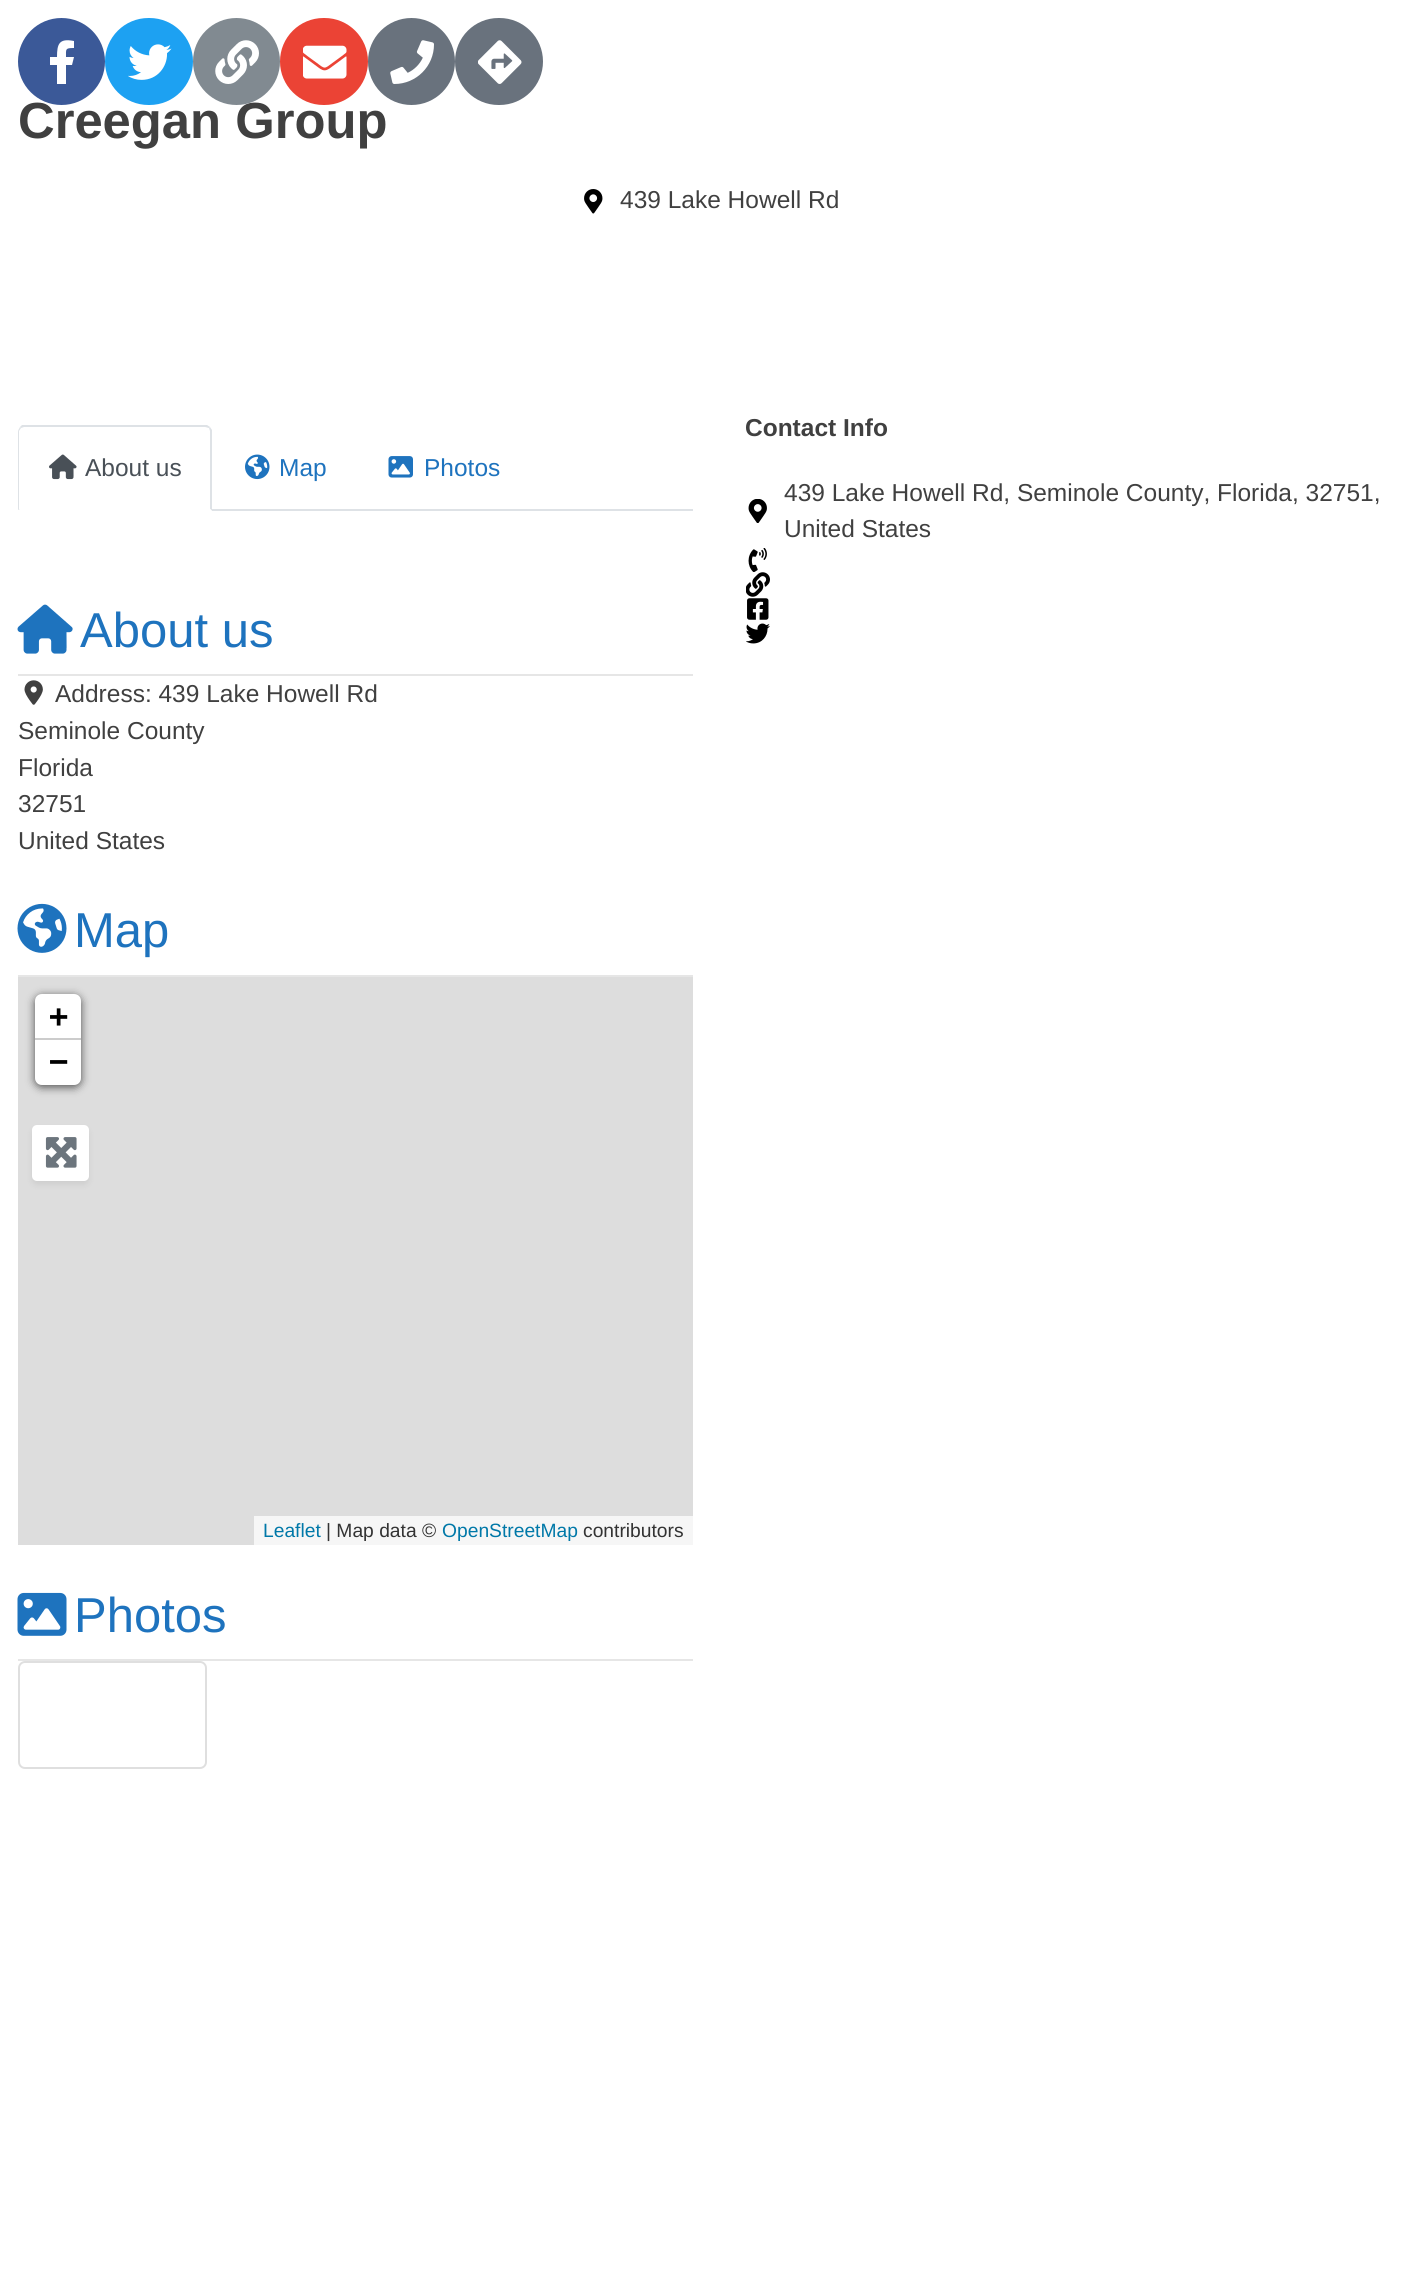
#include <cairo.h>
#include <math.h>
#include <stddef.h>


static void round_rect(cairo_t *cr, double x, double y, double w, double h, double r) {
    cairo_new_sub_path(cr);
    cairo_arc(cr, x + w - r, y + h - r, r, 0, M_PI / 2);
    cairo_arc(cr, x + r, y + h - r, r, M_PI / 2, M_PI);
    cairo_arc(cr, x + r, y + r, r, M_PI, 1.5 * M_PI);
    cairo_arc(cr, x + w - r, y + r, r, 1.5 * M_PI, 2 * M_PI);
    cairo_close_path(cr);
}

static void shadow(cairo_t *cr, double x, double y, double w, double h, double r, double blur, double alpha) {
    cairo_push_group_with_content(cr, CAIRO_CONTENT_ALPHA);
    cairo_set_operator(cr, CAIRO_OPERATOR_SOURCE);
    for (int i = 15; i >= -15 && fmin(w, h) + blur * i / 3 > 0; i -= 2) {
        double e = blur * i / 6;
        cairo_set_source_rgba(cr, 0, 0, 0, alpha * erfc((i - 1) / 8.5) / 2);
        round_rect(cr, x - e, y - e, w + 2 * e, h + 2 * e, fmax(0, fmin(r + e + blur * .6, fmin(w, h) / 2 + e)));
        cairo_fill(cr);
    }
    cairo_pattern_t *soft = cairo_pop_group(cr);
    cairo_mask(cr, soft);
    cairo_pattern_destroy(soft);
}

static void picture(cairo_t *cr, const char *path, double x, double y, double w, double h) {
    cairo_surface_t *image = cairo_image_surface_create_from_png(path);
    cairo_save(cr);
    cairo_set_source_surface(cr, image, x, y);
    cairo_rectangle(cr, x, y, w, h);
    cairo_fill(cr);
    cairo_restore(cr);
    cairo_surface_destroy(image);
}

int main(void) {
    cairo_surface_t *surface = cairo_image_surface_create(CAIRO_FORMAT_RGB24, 1419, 2293);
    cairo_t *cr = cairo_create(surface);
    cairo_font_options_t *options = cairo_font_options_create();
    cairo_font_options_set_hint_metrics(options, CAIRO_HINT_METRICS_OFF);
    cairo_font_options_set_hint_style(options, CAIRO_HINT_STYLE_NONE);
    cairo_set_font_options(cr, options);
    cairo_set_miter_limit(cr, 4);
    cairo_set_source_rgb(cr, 1, 1, 1);
    cairo_paint(cr);
    cairo_select_font_face(cr, "Liberation Sans", CAIRO_FONT_SLANT_NORMAL, CAIRO_FONT_WEIGHT_BOLD);
    cairo_set_font_size(cr, 50.75);
    cairo_set_source_rgb(cr, 0.251, 0.251, 0.251);
    cairo_move_to(cr, 18, 138);
    cairo_show_text(cr, "Creegan Group");
    cairo_set_source_rgb(cr, 0.231, 0.349, 0.596);
    cairo_new_path(cr);
    cairo_arc(cr, 61.5, 61.5, 43.5, 0, 2 * M_PI);
    cairo_fill(cr);
    cairo_set_source_rgb(cr, 1, 1, 1);
    cairo_new_path(cr);
    cairo_move_to(cr, 72, 65);
    cairo_line_to(cr, 74, 57);
    cairo_line_to(cr, 66, 57);
    cairo_curve_to(cr, 66, 49, 65, 48, 74, 48);
    cairo_line_to(cr, 74, 41);
    cairo_curve_to(cr, 59, 38, 57, 44, 57, 57);
    cairo_line_to(cr, 50, 57);
    cairo_line_to(cr, 50, 65);
    cairo_line_to(cr, 57, 65);
    cairo_line_to(cr, 57, 84);
    cairo_line_to(cr, 66, 84);
    cairo_line_to(cr, 66, 65);
    cairo_close_path(cr);
    cairo_fill(cr);
    cairo_set_source_rgb(cr, 0.114, 0.631, 0.949);
    round_rect(cr, 105, 18, 88, 87, 43.5);
    cairo_fill(cr);
    picture(cr, "img1.png", 128, 44, 44, 36);
    cairo_set_source_rgb(cr, 0.506, 0.541, 0.569);
    cairo_arc(cr, 236.5, 61.5, 43.5, 0, 2 * M_PI);
    cairo_fill(cr);
    picture(cr, "img2.png", 215, 40, 44, 44);
    cairo_set_source_rgb(cr, 0.918, 0.263, 0.208);
    round_rect(cr, 280, 18, 88, 87, 43.5);
    cairo_fill(cr);
    picture(cr, "img3.png", 303, 45, 44, 34);
    cairo_set_source_rgb(cr, 0.412, 0.447, 0.49);
    cairo_arc(cr, 411.5, 61.5, 43.5, 0, 2 * M_PI);
    cairo_fill(cr);
    picture(cr, "img4.png", 390, 40, 44, 44);
    round_rect(cr, 455, 18, 88, 87, 43.5);
    cairo_fill(cr);
    picture(cr, "img5.png", 478, 40, 44, 44);
    picture(cr, "img6.png", 584, 189, 19, 25);
    cairo_select_font_face(cr, "Liberation Sans", CAIRO_FONT_SLANT_NORMAL, CAIRO_FONT_WEIGHT_NORMAL);
    cairo_set_font_size(cr, 24.5);
    cairo_set_source_rgb(cr, 0.251, 0.251, 0.251);
    cairo_move_to(cr, 620, 208);
    cairo_show_text(cr, "439 Lake Howell Rd");
    cairo_set_source_rgb(cr, 0.871, 0.886, 0.902);
    cairo_rectangle(cr, 212, 509, 481, 2);
    cairo_fill(cr);
    cairo_new_path(cr);
    cairo_move_to(cr, 24, 427);
    cairo_line_to(cr, 21, 428);
    cairo_line_to(cr, 20, 427);
    cairo_line_to(cr, 22, 425);
    cairo_line_to(cr, 207, 425);
    cairo_line_to(cr, 210, 427);
    cairo_line_to(cr, 209, 428);
    cairo_curve_to(cr, 208, 428, 206, 427, 205, 427);
    cairo_close_path(cr);
    cairo_fill(cr);
    cairo_new_path(cr);
    cairo_move_to(cr, 212, 430);
    cairo_line_to(cr, 212, 511);
    cairo_line_to(cr, 210, 509);
    cairo_line_to(cr, 210, 431);
    cairo_line_to(cr, 209, 428);
    cairo_line_to(cr, 210, 427);
    cairo_close_path(cr);
    cairo_fill(cr);
    cairo_set_source_rgb(cr, 1, 1, 1);
    cairo_new_path(cr);
    cairo_move_to(cr, 212, 511);
    cairo_line_to(cr, 210, 509);
    cairo_line_to(cr, 20, 509);
    cairo_line_to(cr, 18, 511);
    cairo_close_path(cr);
    cairo_fill(cr);
    cairo_set_source_rgb(cr, 0.871, 0.886, 0.902);
    cairo_new_path(cr);
    cairo_move_to(cr, 18, 510);
    cairo_line_to(cr, 18, 432);
    cairo_curve_to(cr, 18, 430, 19, 429, 20, 427);
    cairo_line_to(cr, 21, 428);
    cairo_line_to(cr, 19, 431);
    cairo_line_to(cr, 19, 509);
    cairo_line_to(cr, 20, 509);
    cairo_close_path(cr);
    cairo_fill(cr);
    picture(cr, "img7.png", 49, 454, 28, 26);
    cairo_set_source_rgb(cr, 0.286, 0.314, 0.341);
    cairo_move_to(cr, 85, 476);
    cairo_show_text(cr, "About us");
    picture(cr, "img8.png", 245, 454, 25, 26);
    cairo_set_source_rgb(cr, 0.118, 0.451, 0.745);
    cairo_move_to(cr, 279, 476);
    cairo_show_text(cr, "Map");
    picture(cr, "img9.png", 388, 456, 25, 22);
    cairo_move_to(cr, 424, 476);
    cairo_show_text(cr, "Photos");
    picture(cr, "img10.png", 17, 604, 56, 50);
    cairo_set_font_size(cr, 49);
    cairo_move_to(cr, 80, 647);
    cairo_show_text(cr, "About us");
    cairo_set_source_rgb(cr, 0.902, 0.902, 0.902);
    cairo_rectangle(cr, 18, 674, 675, 2);
    cairo_fill(cr);
    picture(cr, "img11.png", 24, 680, 19, 25);
    cairo_set_font_size(cr, 24.5);
    cairo_set_source_rgb(cr, 0.251, 0.251, 0.251);
    cairo_move_to(cr, 55, 702);
    cairo_show_text(cr, "Address: 439 Lake Howell Rd");
    cairo_move_to(cr, 18, 739);
    cairo_show_text(cr, "Seminole County");
    cairo_move_to(cr, 18, 776);
    cairo_show_text(cr, "Florida");
    cairo_move_to(cr, 18, 812);
    cairo_show_text(cr, "32751");
    cairo_move_to(cr, 18, 849);
    cairo_show_text(cr, "United States");
    picture(cr, "img12.png", 17, 903, 50, 50);
    cairo_set_font_size(cr, 49);
    cairo_set_source_rgb(cr, 0.118, 0.451, 0.745);
    cairo_move_to(cr, 74, 947);
    cairo_show_text(cr, "Map");
    cairo_set_source_rgb(cr, 0.902, 0.902, 0.902);
    cairo_rectangle(cr, 18, 975, 675, 2);
    cairo_fill(cr);
    cairo_set_source_rgb(cr, 0.867, 0.867, 0.867);
    cairo_rectangle(cr, 18, 977, 675, 568);
    cairo_fill(cr);
    cairo_set_source_rgb(cr, 0, 0, 0);
    shadow(cr, 35, 996, 46, 91, 7, 4.5, 0.65);
    cairo_set_source_rgb(cr, 1, 1, 1);
    cairo_new_path(cr);
    cairo_move_to(cr, 42, 994);
    cairo_line_to(cr, 74, 994);
    cairo_curve_to(cr, 78, 994, 81, 997, 81, 1001);
    cairo_line_to(cr, 81, 1040);
    cairo_line_to(cr, 35, 1040);
    cairo_line_to(cr, 35, 1001);
    cairo_curve_to(cr, 35, 997, 38, 994, 42, 994);
    cairo_close_path(cr);
    cairo_fill(cr);
    cairo_set_source_rgb(cr, 0.8, 0.8, 0.8);
    cairo_rectangle(cr, 35, 1038, 46, 2);
    cairo_fill(cr);
    cairo_select_font_face(cr, "DejaVu Sans Mono", CAIRO_FONT_SLANT_NORMAL, CAIRO_FONT_WEIGHT_BOLD);
    cairo_set_font_size(cr, 32);
    cairo_set_source_rgb(cr, 0, 0, 0);
    cairo_move_to(cr, 49, 1027);
    cairo_show_text(cr, "+");
    cairo_set_source_rgb(cr, 1, 1, 1);
    cairo_new_path(cr);
    cairo_move_to(cr, 35, 1040);
    cairo_line_to(cr, 81, 1040);
    cairo_line_to(cr, 81, 1078);
    cairo_curve_to(cr, 81, 1082, 78, 1085, 74, 1085);
    cairo_line_to(cr, 42, 1085);
    cairo_curve_to(cr, 38, 1085, 35, 1082, 35, 1078);
    cairo_close_path(cr);
    cairo_fill(cr);
    cairo_set_source_rgb(cr, 0, 0, 0);
    cairo_move_to(cr, 49, 1072);
    cairo_show_text(cr, "−");
    cairo_set_source_rgb(cr, 0.961, 0.961, 0.961);
    cairo_rectangle(cr, 254, 1516, 439, 29);
    cairo_fill(cr);
    cairo_select_font_face(cr, "Liberation Sans", CAIRO_FONT_SLANT_NORMAL, CAIRO_FONT_WEIGHT_NORMAL);
    cairo_set_font_size(cr, 19.25);
    cairo_set_source_rgb(cr, 0, 0.471, 0.659);
    cairo_move_to(cr, 263, 1537);
    cairo_show_text(cr, "Leaflet");
    cairo_set_source_rgb(cr, 0.2, 0.2, 0.2);
    cairo_move_to(cr, 326, 1537);
    cairo_show_text(cr, "| Map data ©");
    cairo_set_source_rgb(cr, 0, 0.471, 0.659);
    cairo_move_to(cr, 442, 1537);
    cairo_show_text(cr, "OpenStreetMap");
    cairo_set_source_rgb(cr, 0.2, 0.2, 0.2);
    cairo_move_to(cr, 583, 1537);
    cairo_show_text(cr, "contributors");
    cairo_set_source_rgb(cr, 0, 0, 0);
    shadow(cr, 32, 1129, 57, 56, 5, 3.5, 0.07);
    cairo_set_source_rgb(cr, 1, 1, 1);
    round_rect(cr, 32, 1125, 57, 56, 5);
    cairo_fill(cr);
    picture(cr, "img13.png", 45, 1137, 32, 31);
    picture(cr, "img14.png", 17, 1592, 50, 44);
    cairo_set_font_size(cr, 49);
    cairo_set_source_rgb(cr, 0.118, 0.451, 0.745);
    cairo_move_to(cr, 74, 1632);
    cairo_show_text(cr, "Photos");
    cairo_set_source_rgb(cr, 0.902, 0.902, 0.902);
    cairo_rectangle(cr, 18, 1659, 675, 2);
    cairo_fill(cr);
    round_rect(cr, 19, 1662, 187, 106, 6);
    cairo_set_source_rgb(cr, 0.875, 0.875, 0.875);
    cairo_stroke(cr);
    cairo_select_font_face(cr, "Liberation Sans", CAIRO_FONT_SLANT_NORMAL, CAIRO_FONT_WEIGHT_BOLD);
    cairo_set_font_size(cr, 24.5);
    cairo_set_source_rgb(cr, 0.251, 0.251, 0.251);
    cairo_move_to(cr, 745, 436);
    cairo_show_text(cr, "Contact Info");
    picture(cr, "img15.png", 748, 499, 19, 24);
    cairo_select_font_face(cr, "Liberation Sans", CAIRO_FONT_SLANT_NORMAL, CAIRO_FONT_WEIGHT_NORMAL);
    cairo_move_to(cr, 784, 501);
    cairo_show_text(cr, "439 Lake Howell Rd, Seminole County, Florida, 32751,");
    cairo_move_to(cr, 784, 537);
    cairo_show_text(cr, "United States");
    picture(cr, "img16.png", 748, 548, 19, 24);
    picture(cr, "img17.png", 746, 572, 24, 25);
    picture(cr, "img18.png", 747, 598, 22, 22);
    picture(cr, "img19.png", 746, 623, 24, 21);
    cairo_surface_write_to_png(surface, "page.png");
    cairo_font_options_destroy(options);
    cairo_destroy(cr);
    cairo_surface_destroy(surface);
    return 0;
}
